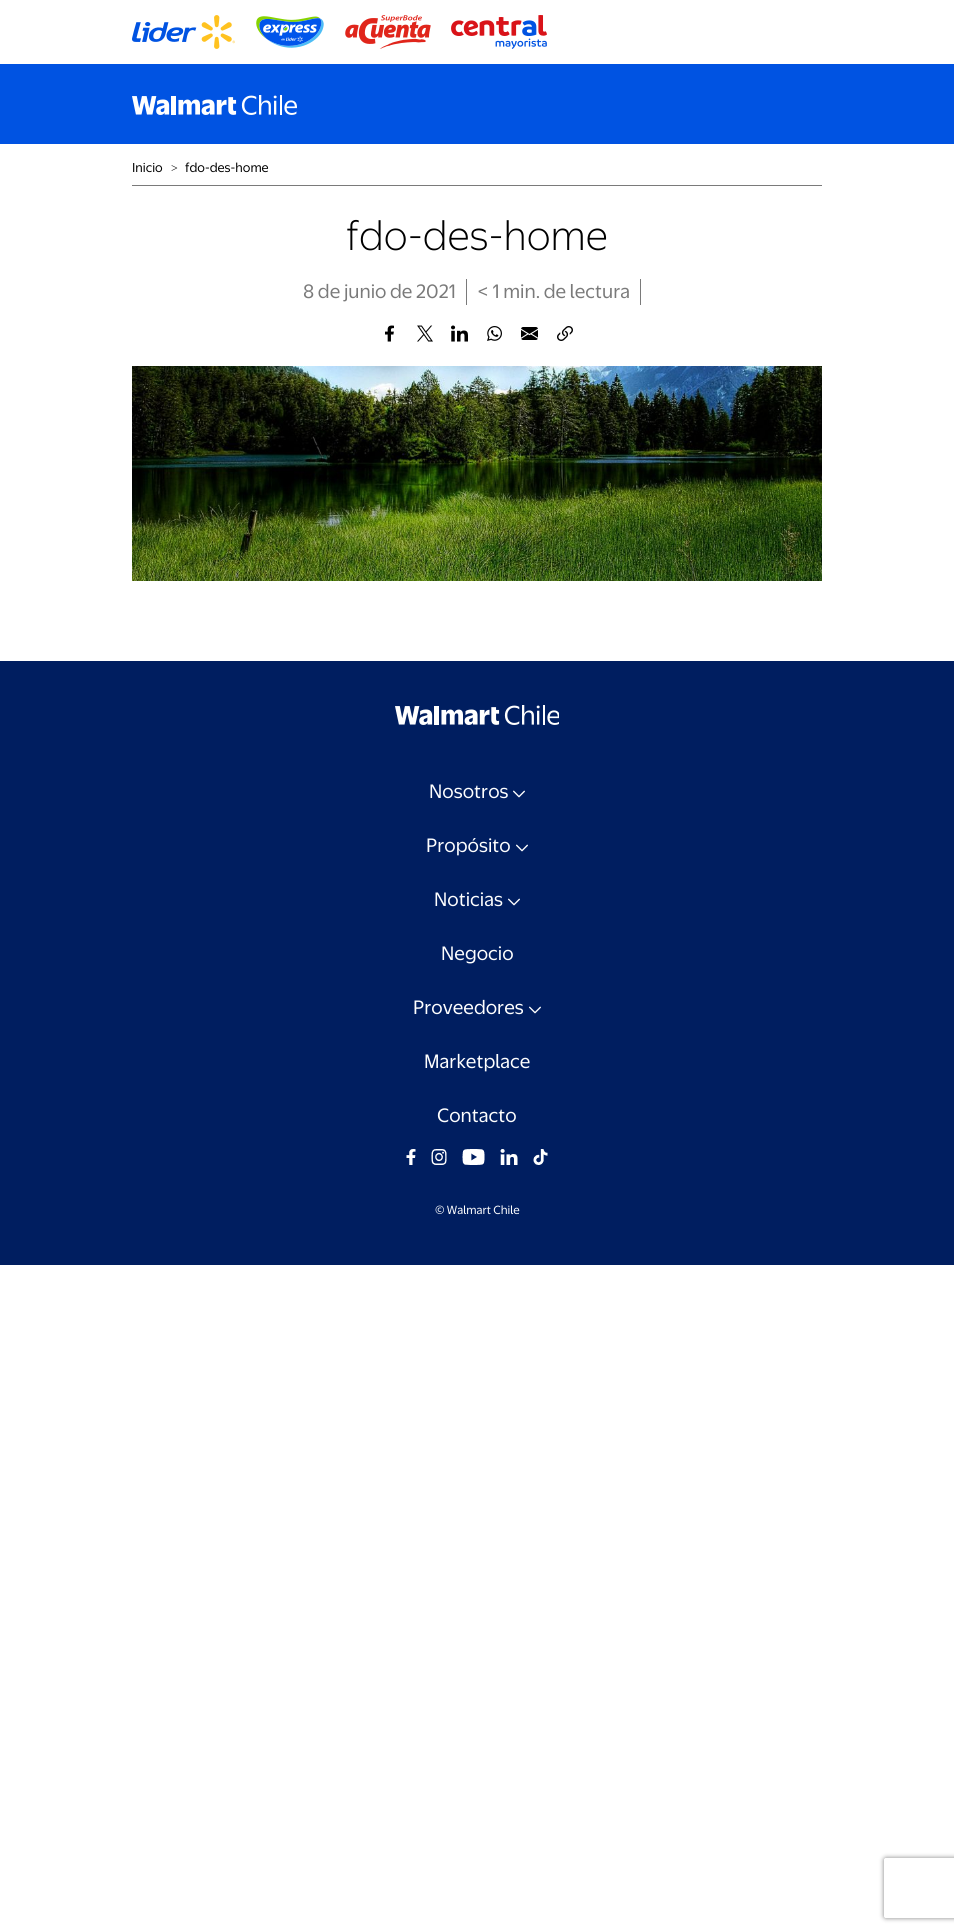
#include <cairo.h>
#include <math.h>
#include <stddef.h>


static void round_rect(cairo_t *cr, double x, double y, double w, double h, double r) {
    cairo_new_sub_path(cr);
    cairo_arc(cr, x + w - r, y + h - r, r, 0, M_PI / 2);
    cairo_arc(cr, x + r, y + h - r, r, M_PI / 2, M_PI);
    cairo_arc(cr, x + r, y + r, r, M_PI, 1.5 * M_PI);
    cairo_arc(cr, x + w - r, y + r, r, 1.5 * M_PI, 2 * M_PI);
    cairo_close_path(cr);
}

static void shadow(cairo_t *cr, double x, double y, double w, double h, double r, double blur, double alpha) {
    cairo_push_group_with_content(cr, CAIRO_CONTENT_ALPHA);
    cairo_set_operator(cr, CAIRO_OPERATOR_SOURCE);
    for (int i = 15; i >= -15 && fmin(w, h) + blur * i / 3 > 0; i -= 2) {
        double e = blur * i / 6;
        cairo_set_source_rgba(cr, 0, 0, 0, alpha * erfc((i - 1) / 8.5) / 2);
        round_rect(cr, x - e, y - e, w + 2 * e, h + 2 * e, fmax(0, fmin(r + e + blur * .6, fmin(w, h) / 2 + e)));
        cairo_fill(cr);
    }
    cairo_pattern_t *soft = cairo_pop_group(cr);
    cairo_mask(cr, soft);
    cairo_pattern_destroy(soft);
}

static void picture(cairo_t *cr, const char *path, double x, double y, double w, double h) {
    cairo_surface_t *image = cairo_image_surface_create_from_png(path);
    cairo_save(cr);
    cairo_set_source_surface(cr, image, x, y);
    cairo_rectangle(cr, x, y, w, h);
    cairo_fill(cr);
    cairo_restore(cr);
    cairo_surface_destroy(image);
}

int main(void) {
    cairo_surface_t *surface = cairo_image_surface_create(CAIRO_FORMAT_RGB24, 954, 1932);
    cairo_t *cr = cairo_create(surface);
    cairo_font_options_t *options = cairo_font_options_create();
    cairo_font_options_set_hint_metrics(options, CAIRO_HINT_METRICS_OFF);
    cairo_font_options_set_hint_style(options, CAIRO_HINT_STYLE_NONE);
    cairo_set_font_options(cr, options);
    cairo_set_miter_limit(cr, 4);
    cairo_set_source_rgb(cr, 1, 1, 1);
    cairo_paint(cr);
    picture(cr, "img1.png", 132, 15, 103, 34);
    picture(cr, "img2.png", 256, 16, 68, 32);
    picture(cr, "img3.png", 345, 15, 86, 34);
    picture(cr, "img4.png", 451, 15, 96, 34);
    cairo_set_source_rgb(cr, 0, 0.325, 0.886);
    cairo_rectangle(cr, 0, 64, 954, 80);
    cairo_fill(cr);
    picture(cr, "img5.png", 132, 95, 165, 20);
    cairo_set_source_rgb(cr, 0.478, 0.478, 0.478);
    cairo_rectangle(cr, 132, 185, 690, 1);
    cairo_fill(cr);
    cairo_select_font_face(cr, "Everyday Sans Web", CAIRO_FONT_SLANT_NORMAL, CAIRO_FONT_WEIGHT_NORMAL);
    cairo_set_font_size(cr, 12);
    cairo_set_source_rgb(cr, 0, 0, 0);
    cairo_move_to(cr, 132, 172);
    cairo_show_text(cr, "Inicio");
    cairo_select_font_face(cr, "Liberation Serif", CAIRO_FONT_SLANT_NORMAL, CAIRO_FONT_WEIGHT_NORMAL);
    cairo_move_to(cr, 171, 172);
    cairo_show_text(cr, "˃");
    cairo_select_font_face(cr, "Everyday Sans Web", CAIRO_FONT_SLANT_NORMAL, CAIRO_FONT_WEIGHT_NORMAL);
    cairo_move_to(cr, 185, 172);
    cairo_show_text(cr, "fdo-des-home");
    cairo_select_font_face(cr, "Everyday Sans Web Light", CAIRO_FONT_SLANT_NORMAL, CAIRO_FONT_WEIGHT_NORMAL);
    cairo_set_font_size(cr, 38);
    cairo_move_to(cr, 346, 250);
    cairo_show_text(cr, "fdo-des-home");
    cairo_set_source_rgb(cr, 0.478, 0.478, 0.478);
    cairo_rectangle(cr, 466, 279, 1, 26);
    cairo_fill(cr);
    cairo_select_font_face(cr, "Everyday Sans Web", CAIRO_FONT_SLANT_NORMAL, CAIRO_FONT_WEIGHT_NORMAL);
    cairo_set_font_size(cr, 18);
    cairo_move_to(cr, 303, 298);
    cairo_show_text(cr, "8 de junio de 2021");
    cairo_rectangle(cr, 640, 279, 1, 26);
    cairo_fill(cr);
    cairo_move_to(cr, 477, 298);
    cairo_show_text(cr, "< 1 min. de lectura");
    picture(cr, "img6.png", 385, 325, 9, 17);
    picture(cr, "img7.png", 417, 325, 16, 17);
    picture(cr, "img8.png", 451, 325, 17, 17);
    picture(cr, "img9.png", 487, 326, 15, 15);
    picture(cr, "img10.png", 521, 327, 17, 13);
    picture(cr, "img11.png", 557, 326, 16, 15);
    picture(cr, "img12.png", 132, 366, 690, 215);
    cairo_set_source_rgb(cr, 0, 0.118, 0.376);
    cairo_rectangle(cr, 0, 661, 954, 604);
    cairo_fill(cr);
    picture(cr, "img13.png", 395, 705, 164, 20);
    cairo_set_source_rgb(cr, 1, 1, 1);
    cairo_move_to(cr, 429, 798);
    cairo_show_text(cr, "Nosotros");
    picture(cr, "img14.png", 513, 790, 12, 8);
    cairo_move_to(cr, 426, 852);
    cairo_show_text(cr, "Propósito");
    picture(cr, "img14.png", 516, 844, 12, 8);
    cairo_move_to(cr, 434, 906);
    cairo_show_text(cr, "Noticias");
    picture(cr, "img14.png", 508, 898, 12, 8);
    cairo_move_to(cr, 441, 960);
    cairo_show_text(cr, "Negocio");
    cairo_move_to(cr, 413, 1014);
    cairo_show_text(cr, "Proveedores");
    picture(cr, "img14.png", 529, 1006, 12, 8);
    cairo_move_to(cr, 424, 1068);
    cairo_show_text(cr, "Marketplace");
    cairo_move_to(cr, 437, 1122);
    cairo_show_text(cr, "Contacto");
    picture(cr, "img15.png", 406, 1149, 10, 16);
    picture(cr, "img16.png", 431, 1149, 16, 16);
    picture(cr, "img17.png", 462, 1149, 23, 16);
    picture(cr, "img18.png", 500, 1149, 18, 16);
    picture(cr, "img19.png", 533, 1149, 15, 16);
    cairo_set_font_size(cr, 11);
    cairo_move_to(cr, 435, 1214);
    cairo_show_text(cr, "© Walmart Chile");
    cairo_save(cr);
    cairo_set_fill_rule(cr, CAIRO_FILL_RULE_EVEN_ODD);
    cairo_new_path(cr);
    cairo_move_to(cr, 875, 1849);
    cairo_line_to(cr, 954, 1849);
    cairo_line_to(cr, 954, 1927);
    cairo_line_to(cr, 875, 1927);
    cairo_close_path(cr);
    cairo_move_to(cr, 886, 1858);
    cairo_line_to(cr, 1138, 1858);
    cairo_curve_to(cr, 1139, 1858, 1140, 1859, 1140, 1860);
    cairo_line_to(cr, 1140, 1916);
    cairo_curve_to(cr, 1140, 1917, 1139, 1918, 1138, 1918);
    cairo_line_to(cr, 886, 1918);
    cairo_curve_to(cr, 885, 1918, 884, 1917, 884, 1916);
    cairo_line_to(cr, 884, 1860);
    cairo_curve_to(cr, 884, 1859, 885, 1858, 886, 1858);
    cairo_close_path(cr);
    cairo_clip(cr);
    cairo_set_source_rgb(cr, 0.502, 0.502, 0.502);
    shadow(cr, 884, 1858, 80, 60, 2, 2.5, 1);
    cairo_restore(cr);
    cairo_surface_write_to_png(surface, "page.png");
    cairo_font_options_destroy(options);
    cairo_destroy(cr);
    cairo_surface_destroy(surface);
    return 0;
}
